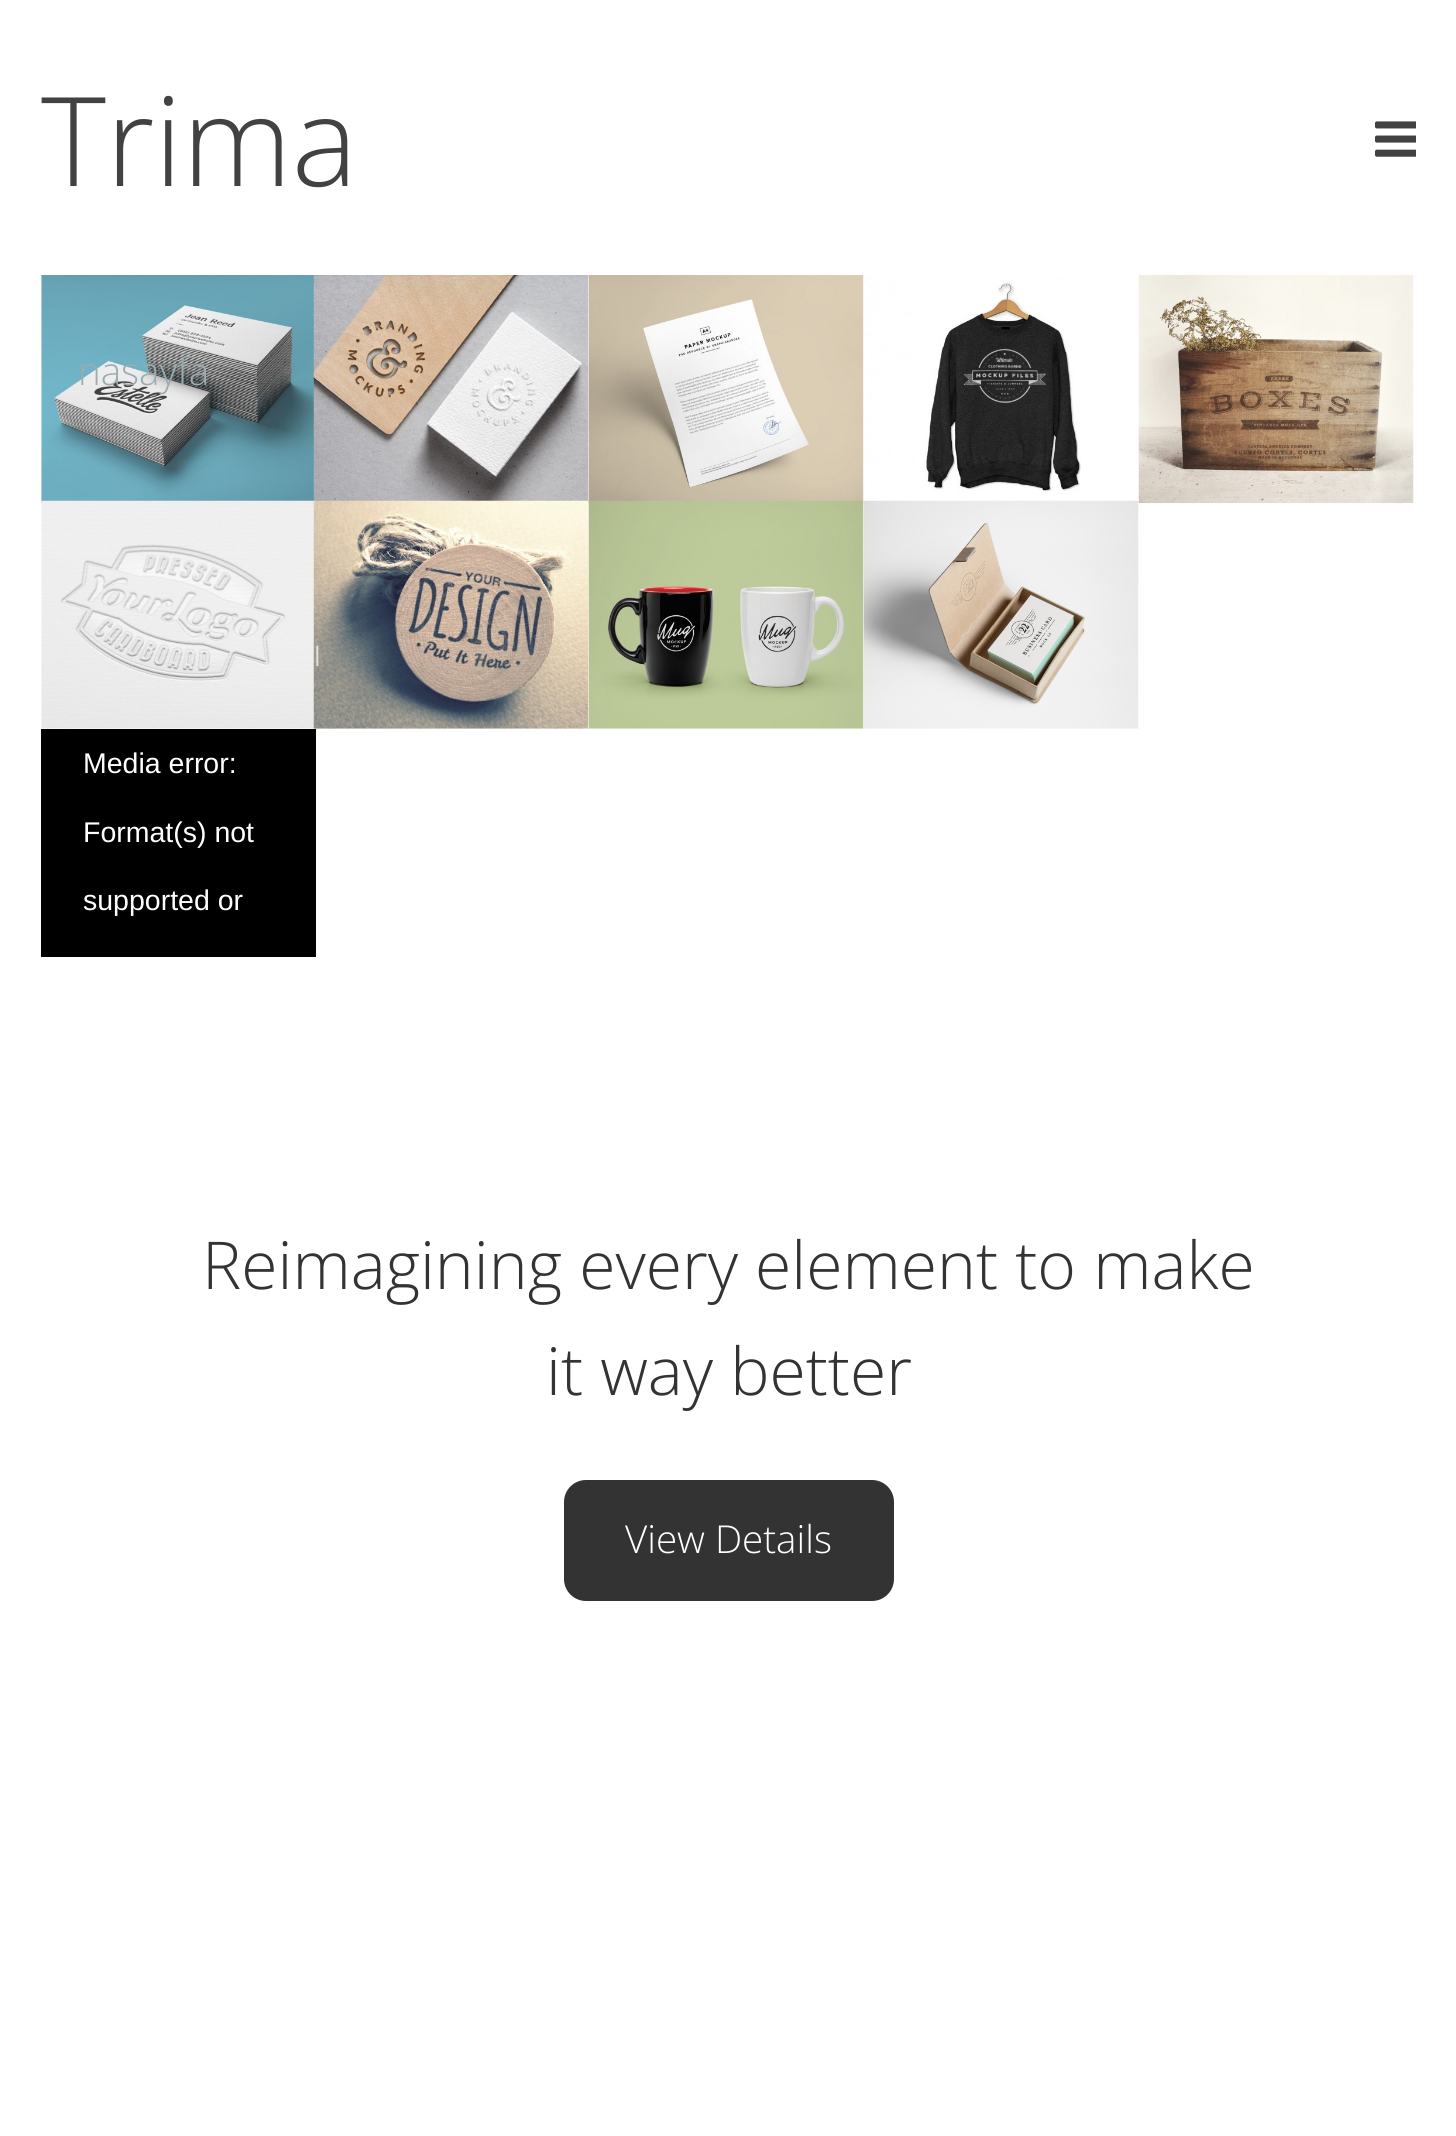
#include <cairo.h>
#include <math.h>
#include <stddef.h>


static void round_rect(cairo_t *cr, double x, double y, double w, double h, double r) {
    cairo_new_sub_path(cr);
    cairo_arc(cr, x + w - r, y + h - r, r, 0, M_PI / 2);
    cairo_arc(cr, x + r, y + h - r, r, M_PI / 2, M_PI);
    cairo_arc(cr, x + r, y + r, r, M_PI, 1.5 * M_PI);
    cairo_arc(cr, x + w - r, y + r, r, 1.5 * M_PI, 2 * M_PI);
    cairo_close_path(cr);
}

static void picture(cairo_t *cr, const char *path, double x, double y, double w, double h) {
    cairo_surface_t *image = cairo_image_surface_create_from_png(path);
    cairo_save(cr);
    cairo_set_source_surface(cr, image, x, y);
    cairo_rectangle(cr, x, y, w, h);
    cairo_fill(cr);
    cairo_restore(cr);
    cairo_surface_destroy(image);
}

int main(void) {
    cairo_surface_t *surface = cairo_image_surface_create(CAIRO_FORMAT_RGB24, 1456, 2136);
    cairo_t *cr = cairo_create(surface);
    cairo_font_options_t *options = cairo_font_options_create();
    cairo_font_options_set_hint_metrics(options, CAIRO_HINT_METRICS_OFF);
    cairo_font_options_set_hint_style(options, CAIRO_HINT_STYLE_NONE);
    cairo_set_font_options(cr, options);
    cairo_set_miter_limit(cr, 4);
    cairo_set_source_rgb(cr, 1, 1, 1);
    cairo_paint(cr);
    cairo_select_font_face(cr, "Open Sans Light", CAIRO_FONT_SLANT_NORMAL, CAIRO_FONT_WEIGHT_NORMAL);
    cairo_set_font_size(cr, 124);
    cairo_set_source_rgb(cr, 0.259, 0.259, 0.259);
    cairo_move_to(cr, 41, 186);
    cairo_show_text(cr, "Trima");
    picture(cr, "img1.png", 1375, 121, 41, 36);
    picture(cr, "img2.png", 41, 275, 273, 229);
    cairo_set_font_size(cr, 38.5);
    cairo_set_source_rgb(cr, 0.608, 0.675, 0.694);
    cairo_move_to(cr, 78, 385);
    cairo_show_text(cr, "nasayfa");
    picture(cr, "img3.png", 313, 275, 276, 228);
    picture(cr, "img7.png", 41, 500, 276, 229);
    picture(cr, "img4.png", 588, 275, 276, 228);
    picture(cr, "img8.png", 313, 500, 276, 229);
    cairo_set_source_rgb(cr, 0.894, 0.894, 0.894);
    cairo_move_to(cr, 313, 666);
    cairo_show_text(cr, "ı");
    picture(cr, "img5.png", 863, 275, 218, 228);
    picture(cr, "img6.png", 1138, 275, 276, 229);
    picture(cr, "img9.png", 588, 500, 276, 229);
    picture(cr, "img10.png", 863, 500, 276, 229);
    cairo_set_source_rgb(cr, 0, 0, 0);
    cairo_rectangle(cr, 41, 729, 275, 228);
    cairo_fill(cr);
    cairo_select_font_face(cr, "Liberation Sans", CAIRO_FONT_SLANT_NORMAL, CAIRO_FONT_WEIGHT_NORMAL);
    cairo_set_font_size(cr, 28.5);
    cairo_set_source_rgb(cr, 1, 1, 1);
    cairo_move_to(cr, 83, 773);
    cairo_show_text(cr, "Media error:");
    cairo_move_to(cr, 83, 842);
    cairo_show_text(cr, "Format(s) not");
    cairo_move_to(cr, 83, 910);
    cairo_show_text(cr, "supported or");
    cairo_select_font_face(cr, "Open Sans Light", CAIRO_FONT_SLANT_NORMAL, CAIRO_FONT_WEIGHT_NORMAL);
    cairo_set_font_size(cr, 66);
    cairo_set_source_rgb(cr, 0.2, 0.2, 0.2);
    cairo_move_to(cr, 202, 1289);
    cairo_show_text(cr, "Reimagining every element to make");
    cairo_move_to(cr, 546, 1395);
    cairo_show_text(cr, "it way better");
    round_rect(cr, 564, 1480, 330, 121, 22);
    cairo_fill(cr);
    cairo_set_font_size(cr, 38.5);
    cairo_set_source_rgb(cr, 1, 1, 1);
    cairo_move_to(cr, 625, 1553);
    cairo_show_text(cr, "View Details");
    cairo_surface_write_to_png(surface, "page.png");
    cairo_font_options_destroy(options);
    cairo_destroy(cr);
    cairo_surface_destroy(surface);
    return 0;
}
